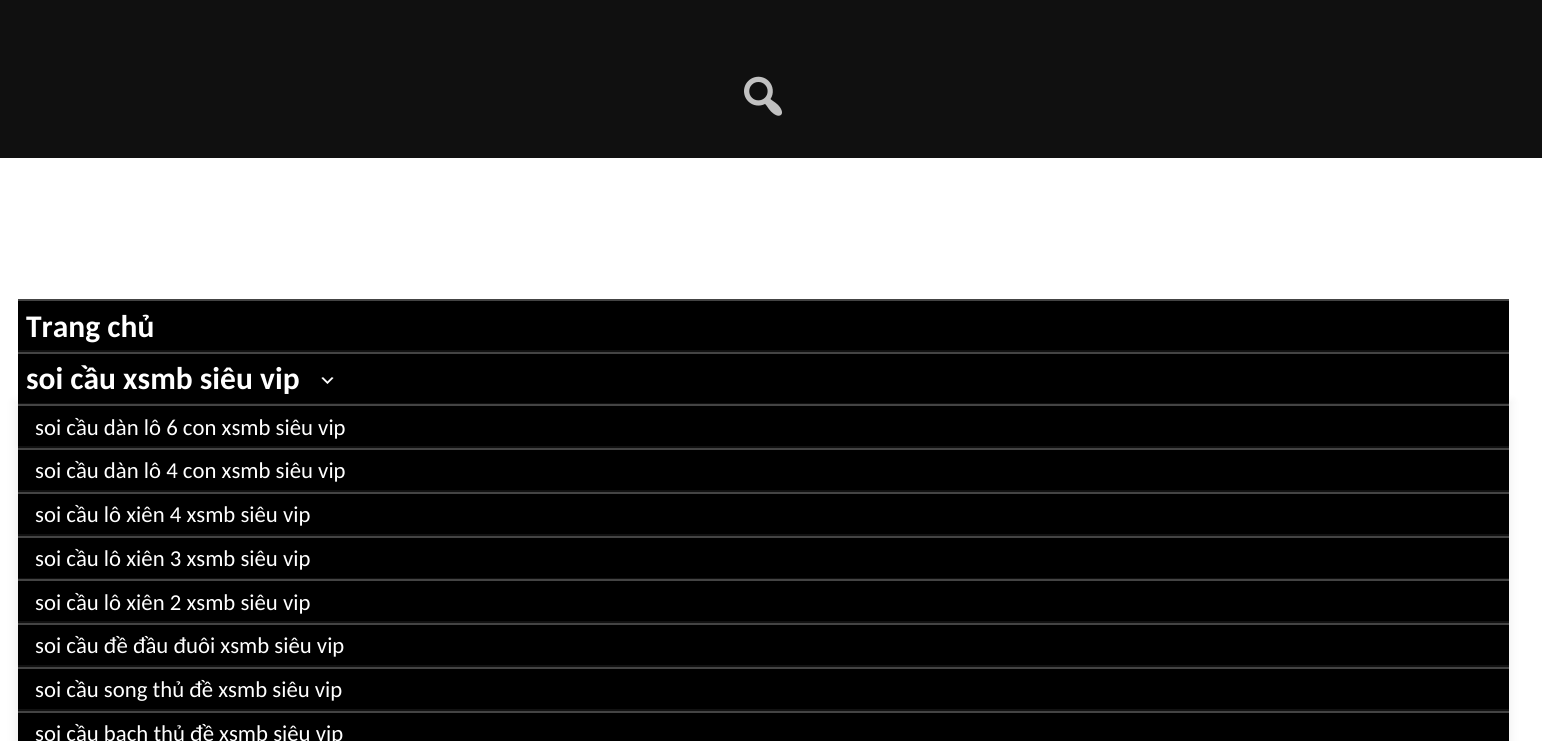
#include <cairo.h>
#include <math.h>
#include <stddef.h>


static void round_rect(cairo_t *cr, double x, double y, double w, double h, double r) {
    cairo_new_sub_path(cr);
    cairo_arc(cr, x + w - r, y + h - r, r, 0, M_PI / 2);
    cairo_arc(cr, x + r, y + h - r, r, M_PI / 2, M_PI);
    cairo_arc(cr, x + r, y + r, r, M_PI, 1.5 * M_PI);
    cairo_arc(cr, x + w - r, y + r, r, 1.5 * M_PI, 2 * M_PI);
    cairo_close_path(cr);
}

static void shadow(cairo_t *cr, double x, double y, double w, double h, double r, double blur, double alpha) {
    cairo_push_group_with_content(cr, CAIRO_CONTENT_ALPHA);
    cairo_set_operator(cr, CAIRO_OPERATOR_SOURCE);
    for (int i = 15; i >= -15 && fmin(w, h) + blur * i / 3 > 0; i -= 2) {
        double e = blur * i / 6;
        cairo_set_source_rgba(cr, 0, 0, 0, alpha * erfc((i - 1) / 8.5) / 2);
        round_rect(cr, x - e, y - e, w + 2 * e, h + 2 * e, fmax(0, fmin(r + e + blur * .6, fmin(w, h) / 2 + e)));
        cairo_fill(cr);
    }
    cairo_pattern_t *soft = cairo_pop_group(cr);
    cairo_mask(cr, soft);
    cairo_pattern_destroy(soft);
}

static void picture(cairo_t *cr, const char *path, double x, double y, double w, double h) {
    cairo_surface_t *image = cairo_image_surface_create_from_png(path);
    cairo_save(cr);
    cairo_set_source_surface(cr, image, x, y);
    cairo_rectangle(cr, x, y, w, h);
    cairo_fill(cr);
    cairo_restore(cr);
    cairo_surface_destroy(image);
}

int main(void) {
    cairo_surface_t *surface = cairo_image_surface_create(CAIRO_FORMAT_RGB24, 1542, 741);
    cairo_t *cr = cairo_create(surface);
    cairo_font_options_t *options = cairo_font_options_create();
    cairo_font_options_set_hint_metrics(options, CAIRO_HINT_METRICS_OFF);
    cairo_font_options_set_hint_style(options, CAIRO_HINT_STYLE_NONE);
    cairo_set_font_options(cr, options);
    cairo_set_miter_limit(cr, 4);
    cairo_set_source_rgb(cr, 1, 1, 1);
    cairo_paint(cr);
    cairo_set_source_rgb(cr, 0.063, 0.063, 0.063);
    cairo_rectangle(cr, 0, 0, 1542, 158);
    cairo_fill(cr);
    picture(cr, "img1.png", 744, 76, 38, 40);
    cairo_set_source_rgb(cr, 0, 0, 0);
    cairo_rectangle(cr, 18, 301, 1491, 49);
    cairo_fill(cr);
    cairo_set_source_rgb(cr, 0.267, 0.267, 0.267);
    cairo_rectangle(cr, 18, 299, 1491, 2);
    cairo_fill(cr);
    cairo_set_source_rgb(cr, 0.067, 0.067, 0.067);
    cairo_rectangle(cr, 18, 350, 1491, 2);
    cairo_fill(cr);
    cairo_select_font_face(cr, "Carlito", CAIRO_FONT_SLANT_NORMAL, CAIRO_FONT_WEIGHT_BOLD);
    cairo_set_font_size(cr, 31.5);
    cairo_set_source_rgb(cr, 1, 1, 1);
    cairo_move_to(cr, 26, 337);
    cairo_show_text(cr, "Trang chủ");
    cairo_set_source_rgb(cr, 0, 0, 0);
    cairo_rectangle(cr, 18, 354, 1491, 49);
    cairo_fill(cr);
    cairo_set_source_rgb(cr, 0.267, 0.267, 0.267);
    cairo_rectangle(cr, 18, 352, 1491, 2);
    cairo_fill(cr);
    cairo_set_source_rgb(cr, 0.067, 0.067, 0.067);
    cairo_rectangle(cr, 18, 403, 1491, 1);
    cairo_fill(cr);
    cairo_set_source_rgb(cr, 0, 0, 0);
    shadow(cr, 14, 401, 1498, 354, 0, 4.5, 0.05);
    cairo_set_source_rgb(cr, 1, 1, 1);
    cairo_move_to(cr, 26, 389);
    cairo_show_text(cr, "soi cầu xsmb siêu vip");
    picture(cr, "img2.png", 321, 377, 13, 7);
    cairo_set_source_rgb(cr, 0, 0, 0);
    cairo_rectangle(cr, 18, 406, 1491, 40);
    cairo_fill(cr);
    cairo_set_source_rgb(cr, 0.267, 0.267, 0.267);
    cairo_rectangle(cr, 18, 404, 1491, 2);
    cairo_fill(cr);
    cairo_set_source_rgb(cr, 0.067, 0.067, 0.067);
    cairo_rectangle(cr, 18, 446, 1491, 2);
    cairo_fill(cr);
    cairo_select_font_face(cr, "Carlito", CAIRO_FONT_SLANT_NORMAL, CAIRO_FONT_WEIGHT_NORMAL);
    cairo_set_font_size(cr, 22.75);
    cairo_set_source_rgb(cr, 1, 1, 1);
    cairo_move_to(cr, 35, 435);
    cairo_show_text(cr, "soi cầu dàn lô 6 con xsmb siêu vip");
    cairo_set_source_rgb(cr, 0, 0, 0);
    cairo_rectangle(cr, 18, 450, 1491, 40);
    cairo_fill(cr);
    cairo_set_source_rgb(cr, 0.267, 0.267, 0.267);
    cairo_rectangle(cr, 18, 448, 1491, 2);
    cairo_fill(cr);
    cairo_set_source_rgb(cr, 0.067, 0.067, 0.067);
    cairo_rectangle(cr, 18, 490, 1491, 2);
    cairo_fill(cr);
    cairo_set_source_rgb(cr, 1, 1, 1);
    cairo_move_to(cr, 35, 478);
    cairo_show_text(cr, "soi cầu dàn lô 4 con xsmb siêu vip");
    cairo_set_source_rgb(cr, 0, 0, 0);
    cairo_rectangle(cr, 18, 494, 1491, 40);
    cairo_fill(cr);
    cairo_set_source_rgb(cr, 0.267, 0.267, 0.267);
    cairo_rectangle(cr, 18, 492, 1491, 2);
    cairo_fill(cr);
    cairo_set_source_rgb(cr, 0.067, 0.067, 0.067);
    cairo_rectangle(cr, 18, 534, 1491, 2);
    cairo_fill(cr);
    cairo_set_source_rgb(cr, 1, 1, 1);
    cairo_move_to(cr, 35, 522);
    cairo_show_text(cr, "soi cầu lô xiên 4 xsmb siêu vip");
    cairo_set_source_rgb(cr, 0, 0, 0);
    cairo_rectangle(cr, 18, 538, 1491, 40);
    cairo_fill(cr);
    cairo_set_source_rgb(cr, 0.267, 0.267, 0.267);
    cairo_rectangle(cr, 18, 536, 1491, 2);
    cairo_fill(cr);
    cairo_set_source_rgb(cr, 0.067, 0.067, 0.067);
    cairo_rectangle(cr, 18, 578, 1491, 1);
    cairo_fill(cr);
    cairo_set_source_rgb(cr, 1, 1, 1);
    cairo_move_to(cr, 35, 566);
    cairo_show_text(cr, "soi cầu lô xiên 3 xsmb siêu vip");
    cairo_set_source_rgb(cr, 0, 0, 0);
    cairo_rectangle(cr, 18, 581, 1491, 40);
    cairo_fill(cr);
    cairo_set_source_rgb(cr, 0.267, 0.267, 0.267);
    cairo_rectangle(cr, 18, 579, 1491, 2);
    cairo_fill(cr);
    cairo_set_source_rgb(cr, 0.067, 0.067, 0.067);
    cairo_rectangle(cr, 18, 621, 1491, 2);
    cairo_fill(cr);
    cairo_set_source_rgb(cr, 1, 1, 1);
    cairo_move_to(cr, 35, 610);
    cairo_show_text(cr, "soi cầu lô xiên 2 xsmb siêu vip");
    cairo_set_source_rgb(cr, 0, 0, 0);
    cairo_rectangle(cr, 18, 625, 1491, 40);
    cairo_fill(cr);
    cairo_set_source_rgb(cr, 0.267, 0.267, 0.267);
    cairo_rectangle(cr, 18, 623, 1491, 2);
    cairo_fill(cr);
    cairo_set_source_rgb(cr, 0.067, 0.067, 0.067);
    cairo_rectangle(cr, 18, 665, 1491, 2);
    cairo_fill(cr);
    cairo_set_source_rgb(cr, 1, 1, 1);
    cairo_move_to(cr, 35, 653);
    cairo_show_text(cr, "soi cầu đề đầu đuôi xsmb siêu vip");
    cairo_set_source_rgb(cr, 0, 0, 0);
    cairo_rectangle(cr, 18, 669, 1491, 40);
    cairo_fill(cr);
    cairo_set_source_rgb(cr, 0.267, 0.267, 0.267);
    cairo_rectangle(cr, 18, 667, 1491, 2);
    cairo_fill(cr);
    cairo_set_source_rgb(cr, 0.067, 0.067, 0.067);
    cairo_rectangle(cr, 18, 709, 1491, 2);
    cairo_fill(cr);
    cairo_set_source_rgb(cr, 1, 1, 1);
    cairo_move_to(cr, 35, 697);
    cairo_show_text(cr, "soi cầu song thủ đề xsmb siêu vip");
    cairo_set_source_rgb(cr, 0, 0, 0);
    cairo_rectangle(cr, 18, 713, 1491, 28);
    cairo_fill(cr);
    cairo_set_source_rgb(cr, 0.267, 0.267, 0.267);
    cairo_rectangle(cr, 18, 711, 1491, 2);
    cairo_fill(cr);
    cairo_set_source_rgb(cr, 1, 1, 1);
    cairo_move_to(cr, 35, 741);
    cairo_show_text(cr, "soi cầu bạch thủ đề xsmb siêu vip");
    cairo_surface_write_to_png(surface, "page.png");
    cairo_font_options_destroy(options);
    cairo_destroy(cr);
    cairo_surface_destroy(surface);
    return 0;
}
